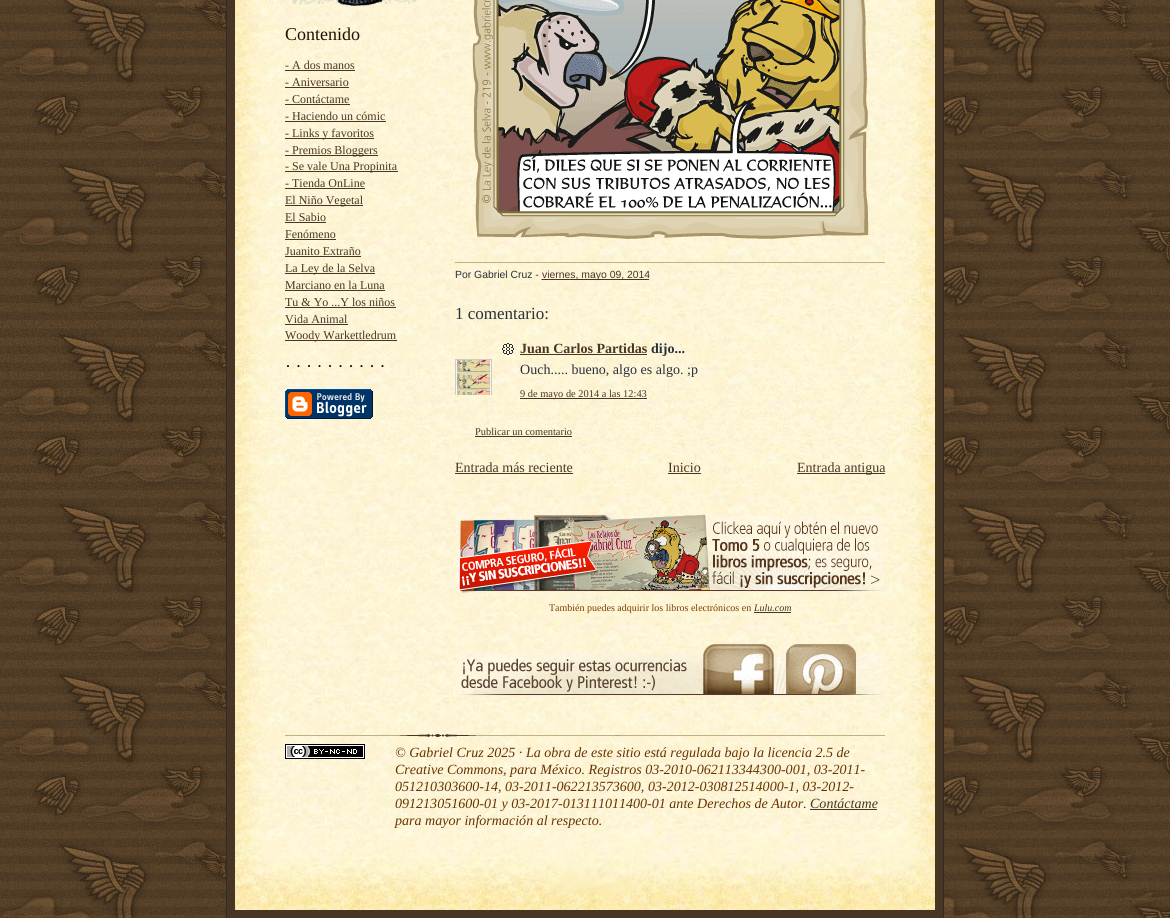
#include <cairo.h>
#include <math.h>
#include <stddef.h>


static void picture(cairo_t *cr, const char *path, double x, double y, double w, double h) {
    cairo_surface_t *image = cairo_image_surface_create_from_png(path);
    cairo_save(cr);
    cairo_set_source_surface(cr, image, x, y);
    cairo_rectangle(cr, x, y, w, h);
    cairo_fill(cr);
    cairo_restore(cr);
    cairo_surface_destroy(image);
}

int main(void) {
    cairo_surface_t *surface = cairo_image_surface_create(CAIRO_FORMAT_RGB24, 1170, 918);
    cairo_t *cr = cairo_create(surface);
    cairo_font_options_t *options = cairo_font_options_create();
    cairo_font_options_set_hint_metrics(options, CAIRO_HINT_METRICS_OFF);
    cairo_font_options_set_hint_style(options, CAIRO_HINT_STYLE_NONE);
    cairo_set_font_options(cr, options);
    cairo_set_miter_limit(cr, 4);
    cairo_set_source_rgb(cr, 1, 1, 1);
    cairo_paint(cr);
    picture(cr, "img1.png", 0, 0, 1170, 918);
    cairo_set_source_rgb(cr, 0.278, 0.212, 0.141);
    cairo_rectangle(cr, 227, 0, 716, 918);
    cairo_fill(cr);
    cairo_set_source_rgb(cr, 0.2, 0.165, 0.141);
    cairo_rectangle(cr, 943, 0, 1, 918);
    cairo_fill(cr);
    cairo_rectangle(cr, 226, 0, 1, 918);
    cairo_fill(cr);
    picture(cr, "img2.png", 235, 0, 700, 829);
    picture(cr, "img3.png", 292, 0, 125, 7);
    cairo_select_font_face(cr, "Liberation Serif", CAIRO_FONT_SLANT_NORMAL, CAIRO_FONT_WEIGHT_NORMAL);
    cairo_set_font_size(cr, 18);
    cairo_set_source_rgb(cr, 0.129, 0.067, 0.016);
    cairo_move_to(cr, 285, 40);
    cairo_show_text(cr, "Contenido");
    cairo_set_font_size(cr, 12);
    cairo_set_source_rgb(cr, 0.278, 0.212, 0.141);
    cairo_move_to(cr, 285, 69);
    cairo_show_text(cr, "- A dos manos");
    cairo_rectangle(cr, 285, 70, 70, 1);
    cairo_fill(cr);
    cairo_move_to(cr, 285, 86);
    cairo_show_text(cr, "- Aniversario");
    cairo_rectangle(cr, 285, 87, 64, 1);
    cairo_fill(cr);
    cairo_move_to(cr, 285, 103);
    cairo_show_text(cr, "- Contáctame");
    cairo_rectangle(cr, 285, 104, 65, 1);
    cairo_fill(cr);
    cairo_move_to(cr, 285, 120);
    cairo_show_text(cr, "- Haciendo un cómic");
    cairo_rectangle(cr, 285, 121, 101, 1);
    cairo_fill(cr);
    cairo_rectangle(cr, 285, 138, 89, 1);
    cairo_fill(cr);
    cairo_move_to(cr, 285, 137);
    cairo_show_text(cr, "- Links y favoritos");
    cairo_rectangle(cr, 285, 155, 93, 1);
    cairo_fill(cr);
    cairo_move_to(cr, 285, 154);
    cairo_show_text(cr, "- Premios Bloggers");
    cairo_rectangle(cr, 285, 171, 113, 1);
    cairo_fill(cr);
    cairo_move_to(cr, 285, 170);
    cairo_show_text(cr, "- Se vale Una Propinita");
    cairo_move_to(cr, 285, 187);
    cairo_show_text(cr, "- Tienda OnLine");
    cairo_rectangle(cr, 285, 188, 80, 1);
    cairo_fill(cr);
    cairo_rectangle(cr, 285, 205, 78, 1);
    cairo_fill(cr);
    cairo_move_to(cr, 285, 204);
    cairo_show_text(cr, "El Niño Vegetal");
    cairo_move_to(cr, 285, 221);
    cairo_show_text(cr, "El Sabio");
    cairo_rectangle(cr, 285, 222, 41, 1);
    cairo_fill(cr);
    cairo_move_to(cr, 285, 238);
    cairo_show_text(cr, "Fenómeno");
    cairo_rectangle(cr, 285, 239, 51, 1);
    cairo_fill(cr);
    cairo_move_to(cr, 285, 255);
    cairo_show_text(cr, "Juanito Extraño");
    cairo_rectangle(cr, 285, 256, 76, 1);
    cairo_fill(cr);
    cairo_rectangle(cr, 285, 273, 90, 1);
    cairo_fill(cr);
    cairo_move_to(cr, 285, 272);
    cairo_show_text(cr, "La Ley de la Selva");
    cairo_move_to(cr, 285, 289);
    cairo_show_text(cr, "Marciano en la Luna");
    cairo_rectangle(cr, 285, 290, 100, 1);
    cairo_fill(cr);
    cairo_move_to(cr, 285, 306);
    cairo_show_text(cr, "Tu & Yo ...Y los niños");
    cairo_rectangle(cr, 285, 307, 111, 1);
    cairo_fill(cr);
    cairo_move_to(cr, 285, 323);
    cairo_show_text(cr, "Vida Animal");
    cairo_rectangle(cr, 285, 324, 63, 1);
    cairo_fill(cr);
    cairo_rectangle(cr, 285, 340, 112, 1);
    cairo_fill(cr);
    cairo_move_to(cr, 285, 339);
    cairo_show_text(cr, "Woody Warkettledrum");
    cairo_set_font_size(cr, 18);
    cairo_set_source_rgb(cr, 0.129, 0.067, 0.016);
    cairo_move_to(cr, 285, 372);
    cairo_show_text(cr, "· · · · · · · · · ·");
    picture(cr, "img4.png", 285, 389, 88, 30);
    picture(cr, "img5.png", 472, 0, 397, 239);
    cairo_set_source_rgb(cr, 0.749, 0.694, 0.525);
    cairo_rectangle(cr, 455, 262, 430, 1);
    cairo_fill(cr);
    cairo_select_font_face(cr, "Liberation Sans", CAIRO_FONT_SLANT_NORMAL, CAIRO_FONT_WEIGHT_NORMAL);
    cairo_set_font_size(cr, 10.4);
    cairo_set_source_rgb(cr, 0.161, 0.188, 0.231);
    cairo_move_to(cr, 455, 278);
    cairo_show_text(cr, "Por Gabriel Cruz -");
    cairo_new_path(cr);
    cairo_move_to(cr, 541.5, 279.5);
    cairo_line_to(cr, 649.5, 279.5);
    cairo_set_source_rgb(cr, 0.278, 0.212, 0.141);
    cairo_set_line_width(cr, 1);
    cairo_set_dash(cr, (double[]){1, 1}, 2, 0);
    cairo_stroke(cr);
    cairo_rectangle(cr, 542, 279, 107, 1);
    cairo_fill(cr);
    cairo_move_to(cr, 542, 278);
    cairo_show_text(cr, "viernes, mayo 09, 2014");
    cairo_select_font_face(cr, "Liberation Serif", CAIRO_FONT_SLANT_NORMAL, CAIRO_FONT_WEIGHT_NORMAL);
    cairo_set_font_size(cr, 17);
    cairo_set_source_rgb(cr, 0.161, 0.188, 0.231);
    cairo_move_to(cr, 455, 319);
    cairo_show_text(cr, "1 comentario:");
    picture(cr, "img6.png", 502, 343, 12, 12);
    cairo_select_font_face(cr, "Liberation Serif", CAIRO_FONT_SLANT_NORMAL, CAIRO_FONT_WEIGHT_BOLD);
    cairo_set_font_size(cr, 14.05);
    cairo_set_source_rgb(cr, 0.278, 0.212, 0.141);
    cairo_move_to(cr, 520, 353);
    cairo_show_text(cr, "Juan Carlos Partidas");
    cairo_rectangle(cr, 520, 354, 127, 1);
    cairo_fill(cr);
    cairo_set_source_rgb(cr, 0.161, 0.188, 0.231);
    cairo_move_to(cr, 651, 353);
    cairo_show_text(cr, "dijo...");
    cairo_save(cr);
    cairo_rectangle(cr, 455, 359, 37, 36);
    cairo_clip(cr);
    cairo_rectangle(cr, 455.5, 359.5, 36, 36);
    cairo_set_source_rgb(cr, 0.8, 0.8, 0.8);
    cairo_set_dash(cr, NULL, 0, 0);
    cairo_stroke(cr);
    cairo_restore(cr);
    picture(cr, "img7.png", 456, 360, 35, 35);
    cairo_select_font_face(cr, "Liberation Serif", CAIRO_FONT_SLANT_NORMAL, CAIRO_FONT_WEIGHT_NORMAL);
    cairo_move_to(cr, 520, 374);
    cairo_show_text(cr, "Ouch..... bueno, algo es algo. ;p");
    cairo_set_source_rgb(cr, 0.278, 0.212, 0.141);
    cairo_rectangle(cr, 520, 398, 127, 1);
    cairo_fill(cr);
    cairo_set_font_size(cr, 10.4);
    cairo_move_to(cr, 520, 397);
    cairo_show_text(cr, "9 de mayo de 2014 a las 12:43");
    cairo_move_to(cr, 475, 435);
    cairo_show_text(cr, "Publicar un comentario");
    cairo_rectangle(cr, 475, 436, 97, 1);
    cairo_fill(cr);
    cairo_set_font_size(cr, 14.05);
    cairo_move_to(cr, 455, 472);
    cairo_show_text(cr, "Entrada más reciente");
    cairo_rectangle(cr, 455, 473, 118, 1);
    cairo_fill(cr);
    cairo_move_to(cr, 668, 472);
    cairo_show_text(cr, "Inicio");
    cairo_rectangle(cr, 668, 473, 33, 1);
    cairo_fill(cr);
    cairo_rectangle(cr, 797, 473, 88, 1);
    cairo_fill(cr);
    cairo_move_to(cr, 797, 472);
    cairo_show_text(cr, "Entrada antigua");
    picture(cr, "img8.png", 456, 514, 428, 79);
    cairo_set_font_size(cr, 10);
    cairo_set_source_rgb(cr, 0.471, 0.247, 0.016);
    cairo_move_to(cr, 549, 611);
    cairo_show_text(cr, "También puedes adquirir los libros electrónicos en");
    cairo_select_font_face(cr, "Liberation Serif", CAIRO_FONT_SLANT_ITALIC, CAIRO_FONT_WEIGHT_NORMAL);
    cairo_set_source_rgb(cr, 0.278, 0.212, 0.141);
    cairo_move_to(cr, 754, 611);
    cairo_show_text(cr, "Lulu.com");
    cairo_rectangle(cr, 754, 612, 37, 1);
    cairo_fill(cr);
    picture(cr, "img9.png", 456, 653, 240, 44);
    picture(cr, "img10.png", 696, 644, 84, 53);
    picture(cr, "img11.png", 780, 644, 80, 53);
    picture(cr, "img12.png", 860, 653, 24, 44);
    picture(cr, "img13.png", 285, 734, 600, 3);
    picture(cr, "img14.png", 285, 744, 80, 15);
    cairo_set_font_size(cr, 14.05);
    cairo_set_source_rgb(cr, 0.4, 0.2, 0);
    cairo_move_to(cr, 395, 757);
    cairo_show_text(cr, "© Gabriel Cruz 2025 · La obra de este sitio está regulada bajo la licencia 2.5 de");
    cairo_move_to(cr, 395, 774);
    cairo_show_text(cr, "Creative Commons, para México. Registros 03-2010-062113344300-001, 03-2011-");
    cairo_move_to(cr, 395, 791);
    cairo_show_text(cr, "051210303600-14, 03-2011-062213573600, 03-2012-030812514000-1, 03-2012-");
    cairo_move_to(cr, 395, 808);
    cairo_show_text(cr, "091213051600-01 y 03-2017-013111011400-01 ante Derechos de Autor.");
    cairo_set_source_rgb(cr, 0.278, 0.212, 0.141);
    cairo_move_to(cr, 810, 808);
    cairo_show_text(cr, "Contáctame");
    cairo_rectangle(cr, 810, 809, 67, 1);
    cairo_fill(cr);
    cairo_set_source_rgb(cr, 0.4, 0.2, 0);
    cairo_move_to(cr, 395, 825);
    cairo_show_text(cr, "para mayor información al respecto.");
    picture(cr, "img15.png", 235, 829, 700, 81);
    cairo_surface_write_to_png(surface, "page.png");
    cairo_font_options_destroy(options);
    cairo_destroy(cr);
    cairo_surface_destroy(surface);
    return 0;
}
